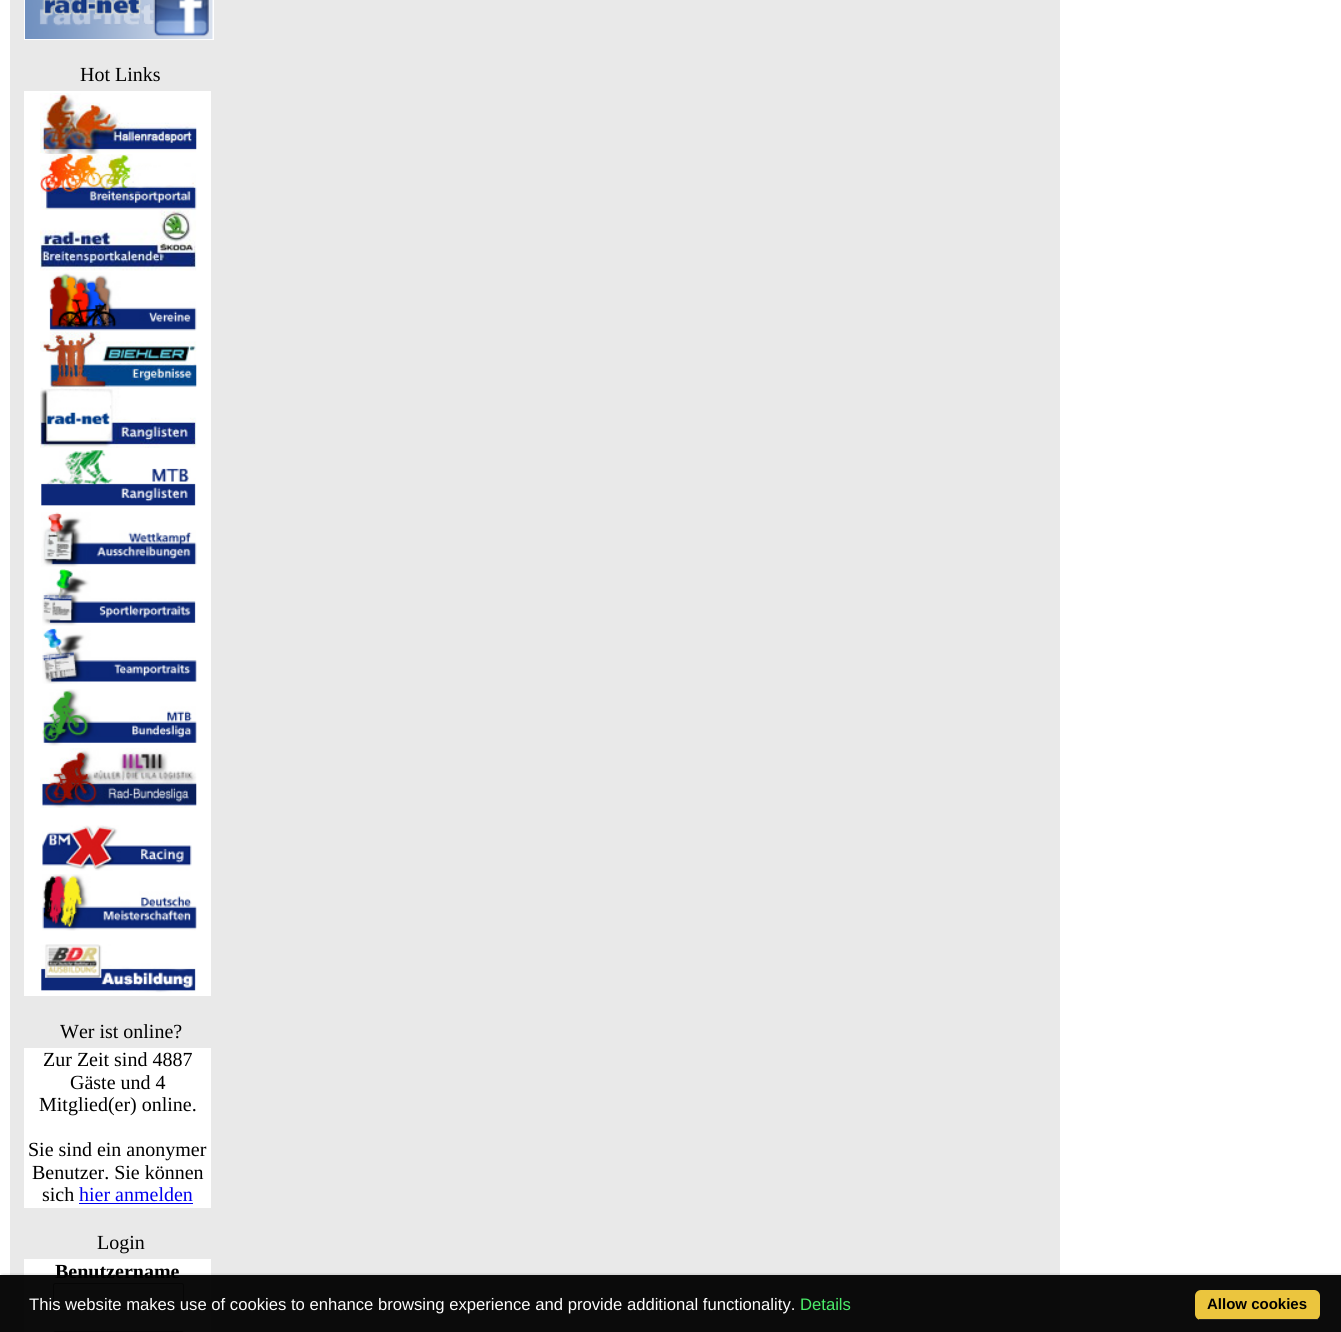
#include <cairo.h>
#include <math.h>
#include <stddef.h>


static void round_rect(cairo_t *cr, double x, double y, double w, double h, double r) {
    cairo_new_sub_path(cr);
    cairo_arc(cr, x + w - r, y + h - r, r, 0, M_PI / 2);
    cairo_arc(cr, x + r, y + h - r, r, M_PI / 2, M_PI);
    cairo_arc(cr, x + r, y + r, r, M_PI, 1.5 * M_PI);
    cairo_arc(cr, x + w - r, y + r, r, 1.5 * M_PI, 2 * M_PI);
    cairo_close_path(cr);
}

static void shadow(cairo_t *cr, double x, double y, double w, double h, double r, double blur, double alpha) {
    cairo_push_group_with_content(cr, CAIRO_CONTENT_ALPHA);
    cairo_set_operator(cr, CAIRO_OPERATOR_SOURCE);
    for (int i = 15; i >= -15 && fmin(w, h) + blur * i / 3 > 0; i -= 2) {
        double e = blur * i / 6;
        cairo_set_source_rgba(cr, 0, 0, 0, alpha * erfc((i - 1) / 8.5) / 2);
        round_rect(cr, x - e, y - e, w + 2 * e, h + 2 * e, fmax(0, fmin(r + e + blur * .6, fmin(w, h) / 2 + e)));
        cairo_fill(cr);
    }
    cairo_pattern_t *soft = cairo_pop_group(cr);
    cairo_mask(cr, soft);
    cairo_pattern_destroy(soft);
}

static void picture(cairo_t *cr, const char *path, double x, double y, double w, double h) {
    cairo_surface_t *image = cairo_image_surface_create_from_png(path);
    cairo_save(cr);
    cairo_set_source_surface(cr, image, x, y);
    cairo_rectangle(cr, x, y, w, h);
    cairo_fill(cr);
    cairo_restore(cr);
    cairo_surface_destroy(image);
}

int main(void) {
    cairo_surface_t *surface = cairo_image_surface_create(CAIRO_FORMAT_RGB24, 1341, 1332);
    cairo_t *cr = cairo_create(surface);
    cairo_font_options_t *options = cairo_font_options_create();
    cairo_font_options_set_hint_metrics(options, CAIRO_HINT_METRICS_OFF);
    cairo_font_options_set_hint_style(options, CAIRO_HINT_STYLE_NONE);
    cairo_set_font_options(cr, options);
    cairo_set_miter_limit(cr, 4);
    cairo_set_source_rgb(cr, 1, 1, 1);
    cairo_paint(cr);
    cairo_set_source_rgb(cr, 0.914, 0.914, 0.914);
    cairo_rectangle(cr, 10, 0, 1050, 1332);
    cairo_fill(cr);
    cairo_set_source_rgb(cr, 1, 1, 1);
    cairo_rectangle(cr, 24, 0, 190, 40);
    cairo_fill(cr);
    picture(cr, "img1.png", 25, 0, 188, 39);
    cairo_select_font_face(cr, "Liberation Serif", CAIRO_FONT_SLANT_NORMAL, CAIRO_FONT_WEIGHT_NORMAL);
    cairo_set_font_size(cr, 20);
    cairo_set_source_rgb(cr, 0, 0, 0);
    cairo_move_to(cr, 80, 81);
    cairo_show_text(cr, "Hot Links");
    cairo_set_source_rgb(cr, 1, 1, 1);
    cairo_rectangle(cr, 24, 91, 187, 905);
    cairo_fill(cr);
    picture(cr, "img2.png", 40, 93, 157, 61);
    picture(cr, "img3.png", 40, 154, 157, 57);
    picture(cr, "img4.png", 40, 210, 157, 61);
    picture(cr, "img5.png", 49, 272, 148, 59);
    picture(cr, "img6.png", 40, 331, 157, 57);
    picture(cr, "img7.png", 40, 387, 157, 61);
    picture(cr, "img8.png", 41, 450, 155, 56);
    picture(cr, "img9.png", 41, 512, 156, 55);
    picture(cr, "img10.png", 42, 569, 154, 57);
    picture(cr, "img11.png", 42, 628, 155, 56);
    picture(cr, "img12.png", 42, 689, 155, 57);
    picture(cr, "img13.png", 40, 748, 157, 60);
    picture(cr, "img14.png", 42, 825, 150, 46);
    picture(cr, "img15.png", 42, 874, 155, 57);
    picture(cr, "img16.png", 41, 944, 155, 49);
    cairo_set_source_rgb(cr, 0, 0, 0);
    cairo_move_to(cr, 60, 1038);
    cairo_show_text(cr, "Wer ist online?");
    cairo_set_source_rgb(cr, 1, 1, 1);
    cairo_rectangle(cr, 24, 1048, 187, 160);
    cairo_fill(cr);
    cairo_set_source_rgb(cr, 0, 0, 0);
    cairo_move_to(cr, 43, 1066);
    cairo_show_text(cr, "Zur Zeit sind 4887");
    cairo_move_to(cr, 70, 1089);
    cairo_show_text(cr, "Gäste und 4");
    cairo_move_to(cr, 39, 1111);
    cairo_show_text(cr, "Mitglied(er) online.");
    cairo_move_to(cr, 28, 1156);
    cairo_show_text(cr, "Sie sind ein anonymer");
    cairo_move_to(cr, 32, 1179);
    cairo_show_text(cr, "Benutzer. Sie können");
    cairo_move_to(cr, 42, 1201);
    cairo_show_text(cr, "sich");
    cairo_set_source_rgb(cr, 0, 0, 0.933);
    cairo_move_to(cr, 79, 1201);
    cairo_show_text(cr, "hier anmelden");
    cairo_rectangle(cr, 79, 1203, 114, 1);
    cairo_fill(cr);
    cairo_set_source_rgb(cr, 0, 0, 0);
    cairo_move_to(cr, 97, 1249);
    cairo_show_text(cr, "Login");
    cairo_set_source_rgb(cr, 1, 1, 1);
    cairo_rectangle(cr, 24, 1259, 187, 73);
    cairo_fill(cr);
    cairo_select_font_face(cr, "Liberation Serif", CAIRO_FONT_SLANT_NORMAL, CAIRO_FONT_WEIGHT_BOLD);
    cairo_set_source_rgb(cr, 0, 0, 0);
    cairo_move_to(cr, 55, 1278);
    cairo_show_text(cr, "Benutzername");
    round_rect(cr, 53.5, 1283.5, 130, 25, 2);
    cairo_set_source_rgb(cr, 0.463, 0.463, 0.463);
    cairo_set_line_width(cr, 1);
    cairo_stroke(cr);
    round_rect(cr, 53.5, 1331.5, 130, 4, 2);
    cairo_stroke(cr);
    cairo_save(cr);
    cairo_rectangle(cr, 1, 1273, 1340, 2);
    cairo_clip(cr);
    cairo_set_source_rgb(cr, 0, 0, 0);
    shadow(cr, 3, 1278, 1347, 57, 0, 3, 0.6);
    cairo_restore(cr);
    cairo_set_source_rgba(cr, 0, 0, 0, 0.95);
    cairo_rectangle(cr, 0, 1275, 1341, 57);
    cairo_fill(cr);
    cairo_select_font_face(cr, "Liberation Sans", CAIRO_FONT_SLANT_NORMAL, CAIRO_FONT_WEIGHT_NORMAL);
    cairo_set_font_size(cr, 16.65);
    cairo_set_source_rgb(cr, 1, 1, 1);
    cairo_move_to(cr, 29, 1310);
    cairo_show_text(cr, "This website makes use of cookies to enhance browsing experience and provide additional functionality.");
    cairo_set_source_rgb(cr, 0.294, 0.925, 0.412);
    cairo_move_to(cr, 800, 1310);
    cairo_show_text(cr, "Details");
    cairo_set_source_rgb(cr, 0.918, 0.773, 0.243);
    round_rect(cr, 1195, 1290, 125, 30, 6);
    cairo_fill(cr);
    cairo_set_source_rgb(cr, 0.133, 0.133, 0.133);
    cairo_rectangle(cr, 1199, 1319, 119, 1);
    cairo_fill(cr);
    cairo_select_font_face(cr, "Liberation Sans", CAIRO_FONT_SLANT_NORMAL, CAIRO_FONT_WEIGHT_BOLD);
    cairo_set_font_size(cr, 15);
    cairo_set_source_rgb(cr, 0, 0, 0);
    cairo_move_to(cr, 1207, 1309);
    cairo_show_text(cr, "Allow cookies");
    cairo_surface_write_to_png(surface, "page.png");
    cairo_font_options_destroy(options);
    cairo_destroy(cr);
    cairo_surface_destroy(surface);
    return 0;
}
